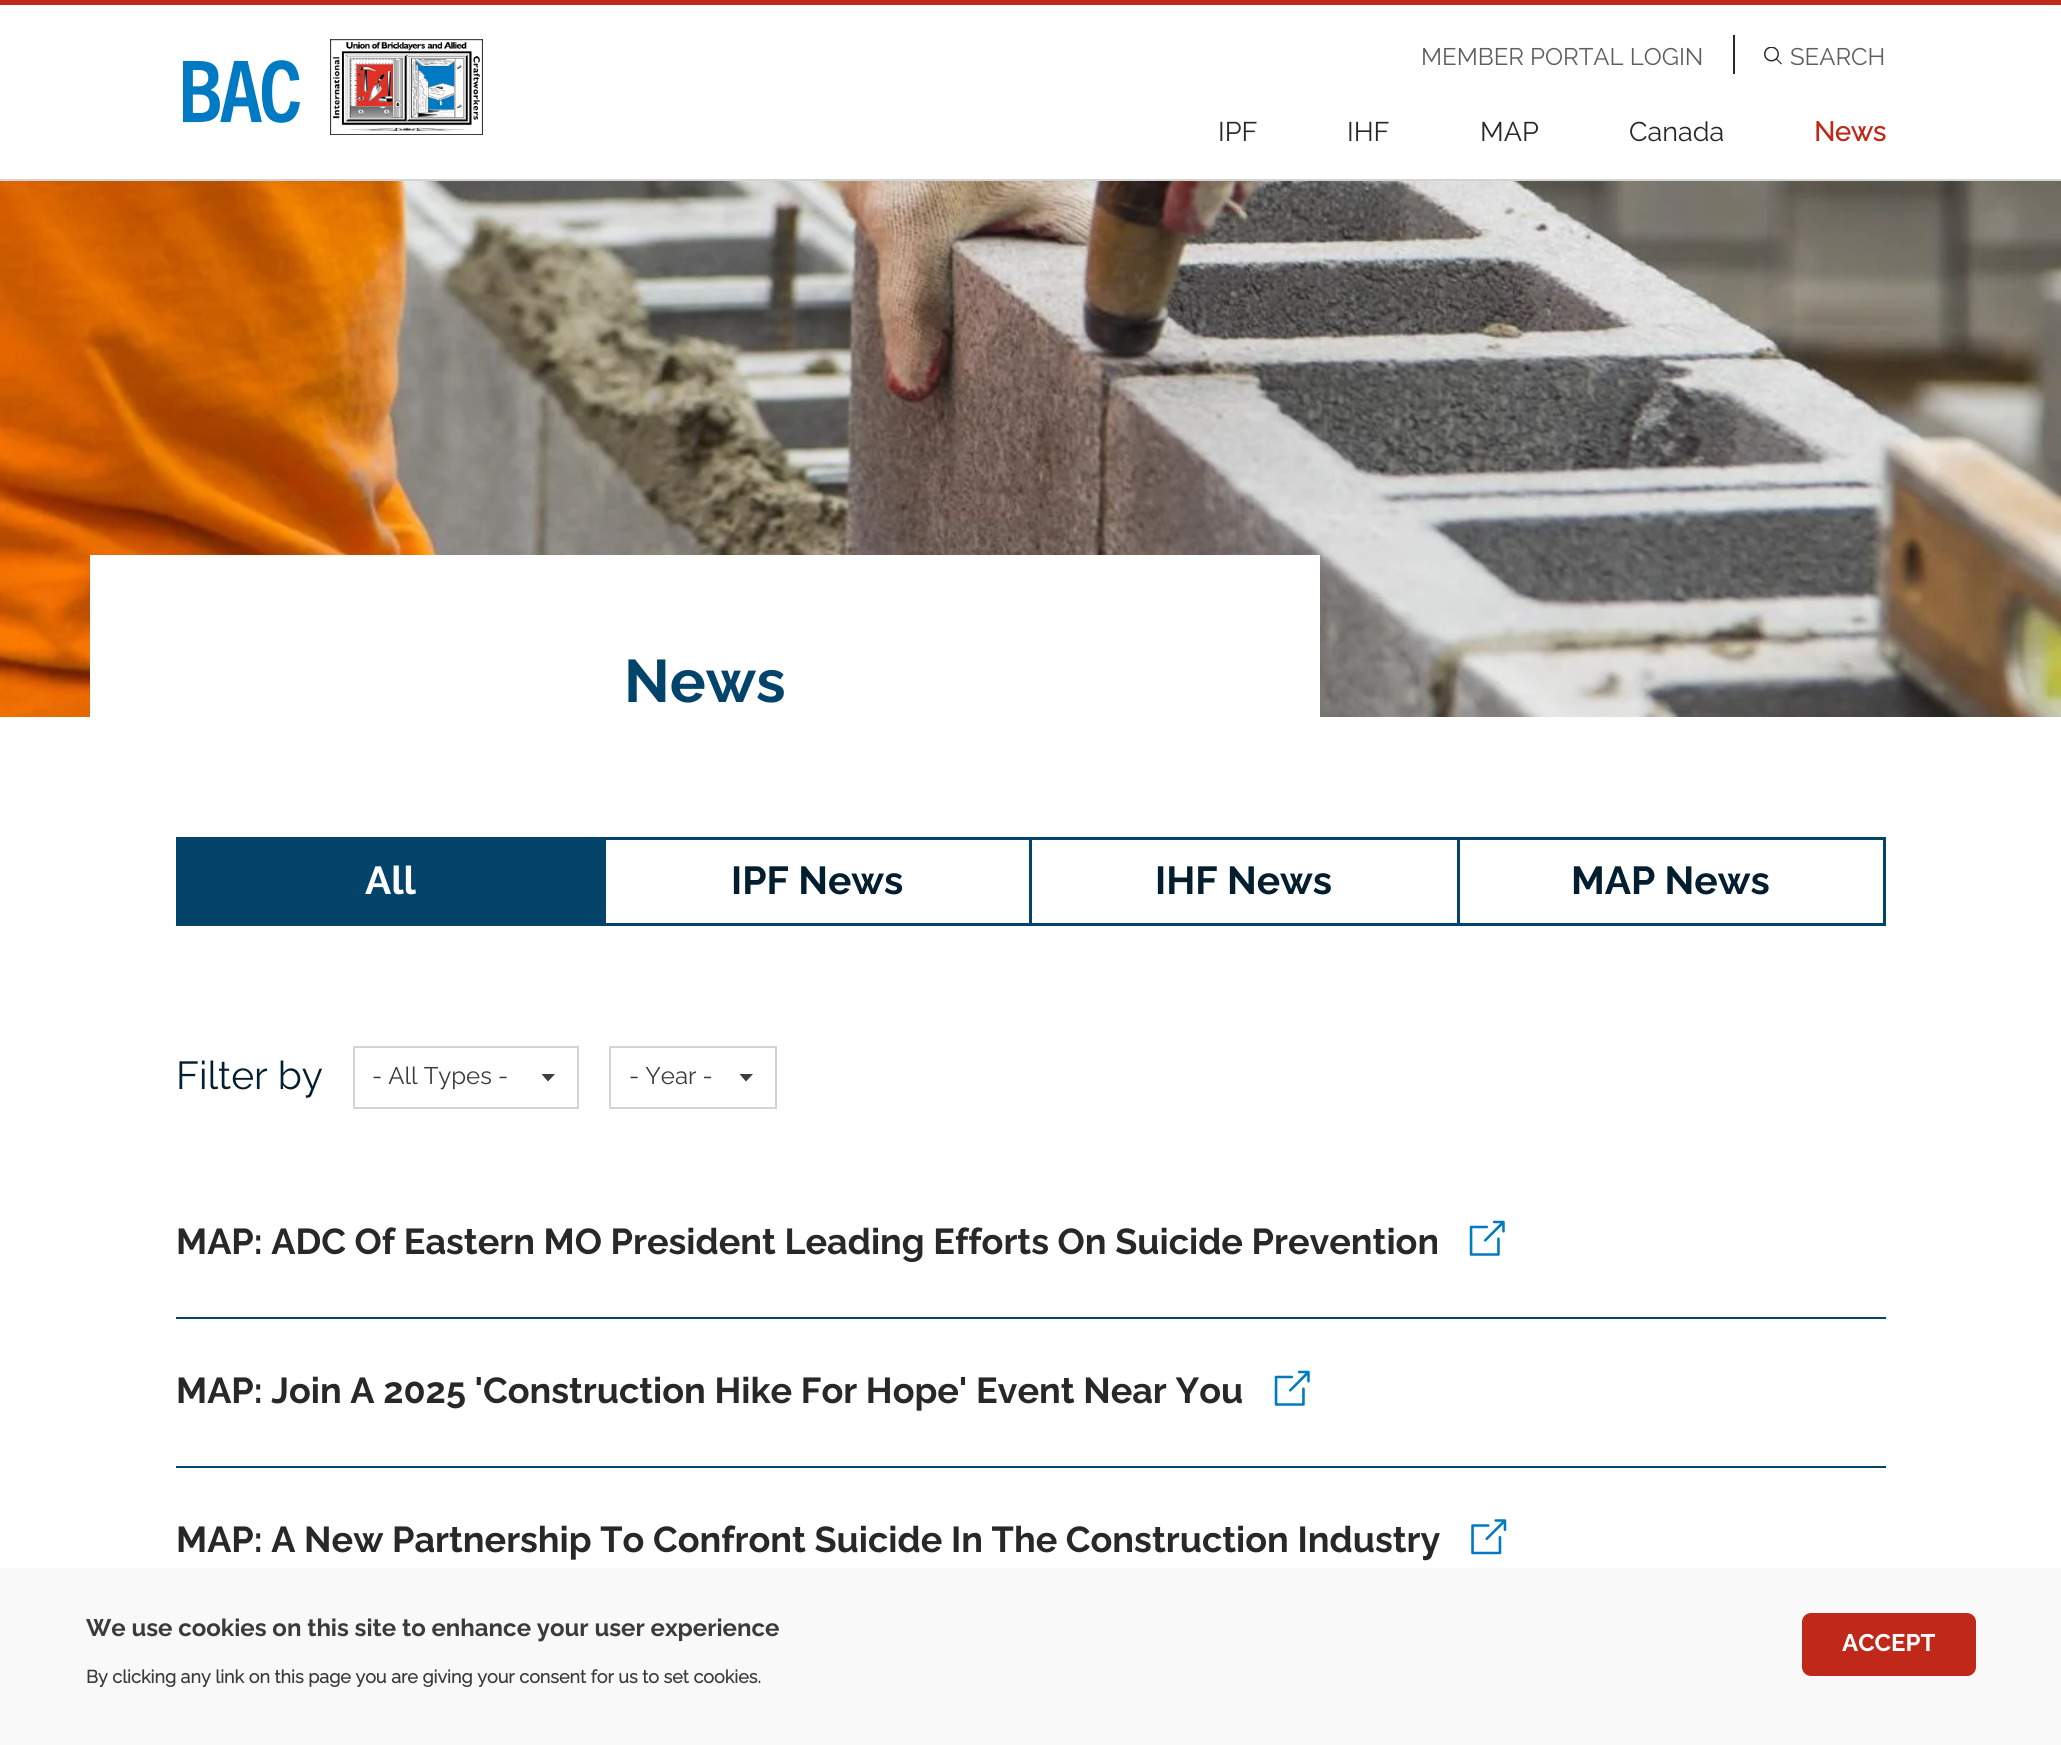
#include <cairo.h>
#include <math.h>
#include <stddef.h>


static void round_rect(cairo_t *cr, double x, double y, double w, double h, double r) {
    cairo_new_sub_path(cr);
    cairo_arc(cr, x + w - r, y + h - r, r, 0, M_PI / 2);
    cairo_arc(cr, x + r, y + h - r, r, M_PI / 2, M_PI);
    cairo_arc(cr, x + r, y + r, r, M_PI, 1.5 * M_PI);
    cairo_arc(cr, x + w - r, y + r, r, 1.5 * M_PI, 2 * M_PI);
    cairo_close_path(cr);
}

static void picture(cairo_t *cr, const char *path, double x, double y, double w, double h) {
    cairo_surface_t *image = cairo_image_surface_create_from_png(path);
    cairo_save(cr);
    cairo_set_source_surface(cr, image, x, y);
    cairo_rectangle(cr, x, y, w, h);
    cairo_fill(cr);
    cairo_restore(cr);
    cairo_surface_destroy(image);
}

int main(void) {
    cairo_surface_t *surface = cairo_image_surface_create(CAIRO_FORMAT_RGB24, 2061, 1745);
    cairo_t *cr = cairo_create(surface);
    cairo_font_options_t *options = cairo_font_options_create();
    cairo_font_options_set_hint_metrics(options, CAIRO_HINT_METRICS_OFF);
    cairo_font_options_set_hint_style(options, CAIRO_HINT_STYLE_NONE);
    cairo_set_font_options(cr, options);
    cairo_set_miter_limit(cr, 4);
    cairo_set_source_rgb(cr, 1, 1, 1);
    cairo_paint(cr);
    cairo_set_source_rgb(cr, 0.753, 0.161, 0.098);
    cairo_rectangle(cr, 0, 0, 2061, 5);
    cairo_fill(cr);
    cairo_set_source_rgb(cr, 0.831, 0.831, 0.831);
    cairo_rectangle(cr, 0, 179, 2061, 2);
    cairo_fill(cr);
    picture(cr, "img1.png", 183, 60, 117, 63);
    picture(cr, "img2.png", 330, 39, 153, 96);
    cairo_select_font_face(cr, "Raleway", CAIRO_FONT_SLANT_NORMAL, CAIRO_FONT_WEIGHT_NORMAL);
    cairo_set_font_size(cr, 24);
    cairo_set_source_rgb(cr, 0.373, 0.373, 0.373);
    cairo_move_to(cr, 1421, 65);
    cairo_show_text(cr, "MEMBER PORTAL LOGIN");
    cairo_set_source_rgb(cr, 0.157, 0.157, 0.157);
    cairo_rectangle(cr, 1733, 35, 2, 39);
    cairo_fill(cr);
    picture(cr, "img3.png", 1764, 47, 18, 18);
    cairo_set_source_rgb(cr, 0.373, 0.373, 0.373);
    cairo_move_to(cr, 1790, 65);
    cairo_show_text(cr, "SEARCH");
    cairo_set_font_size(cr, 27);
    cairo_set_source_rgb(cr, 0.157, 0.157, 0.157);
    cairo_move_to(cr, 1218, 141);
    cairo_show_text(cr, "IPF");
    cairo_move_to(cr, 1347, 141);
    cairo_show_text(cr, "IHF");
    cairo_move_to(cr, 1480, 141);
    cairo_show_text(cr, "MAP");
    cairo_move_to(cr, 1629, 141);
    cairo_show_text(cr, "Canada");
    cairo_select_font_face(cr, "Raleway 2", CAIRO_FONT_SLANT_NORMAL, CAIRO_FONT_WEIGHT_BOLD);
    cairo_set_source_rgb(cr, 0.753, 0.161, 0.098);
    cairo_move_to(cr, 1814, 141);
    cairo_show_text(cr, "News");
    picture(cr, "img4.png", 0, 181, 2061, 536);
    cairo_set_source_rgb(cr, 1, 1, 1);
    cairo_rectangle(cr, 90, 555, 1230, 162);
    cairo_fill(cr);
    cairo_select_font_face(cr, "Raleway", CAIRO_FONT_SLANT_NORMAL, CAIRO_FONT_WEIGHT_BOLD);
    cairo_set_font_size(cr, 60);
    cairo_set_source_rgb(cr, 0.016, 0.267, 0.416);
    cairo_move_to(cr, 624, 702);
    cairo_show_text(cr, "News");
    cairo_rectangle(cr, 176, 837, 1281, 3);
    cairo_fill(cr);
    cairo_rectangle(cr, 176, 923, 1281, 3);
    cairo_fill(cr);
    cairo_rectangle(cr, 176, 837, 3, 89);
    cairo_fill(cr);
    cairo_rectangle(cr, 179, 840, 424, 83);
    cairo_fill(cr);
    cairo_set_font_size(cr, 39);
    cairo_set_source_rgb(cr, 1, 1, 1);
    cairo_move_to(cr, 365, 894);
    cairo_show_text(cr, "All");
    cairo_set_source_rgb(cr, 0.016, 0.267, 0.416);
    cairo_rectangle(cr, 603, 837, 3, 89);
    cairo_fill(cr);
    cairo_set_source_rgb(cr, 0.012, 0.118, 0.18);
    cairo_move_to(cr, 731, 894);
    cairo_show_text(cr, "IPF News");
    cairo_set_source_rgb(cr, 0.016, 0.267, 0.416);
    cairo_rectangle(cr, 1029, 837, 3, 89);
    cairo_fill(cr);
    cairo_set_source_rgb(cr, 0.012, 0.118, 0.18);
    cairo_move_to(cr, 1155, 894);
    cairo_show_text(cr, "IHF News");
    cairo_rectangle(cr, 1458.5, 838.5, 426, 86);
    cairo_set_source_rgb(cr, 0.016, 0.267, 0.416);
    cairo_set_line_width(cr, 3);
    cairo_stroke(cr);
    cairo_set_source_rgb(cr, 0.012, 0.118, 0.18);
    cairo_move_to(cr, 1571, 894);
    cairo_show_text(cr, "MAP News");
    cairo_select_font_face(cr, "Raleway", CAIRO_FONT_SLANT_NORMAL, CAIRO_FONT_WEIGHT_NORMAL);
    cairo_move_to(cr, 176, 1089);
    cairo_show_text(cr, "Filter by");
    cairo_set_source_rgb(cr, 0.224, 0.243, 0.255);
    cairo_set_fill_rule(cr, CAIRO_FILL_RULE_EVEN_ODD);
    cairo_new_path(cr);
    cairo_move_to(cr, 541.5, 1074);
    cairo_line_to(cr, 555, 1074);
    cairo_line_to(cr, 548, 1081.5);
    cairo_close_path(cr);
    cairo_fill(cr);
    cairo_rectangle(cr, 354, 1047, 224, 61);
    cairo_set_source_rgb(cr, 0.831, 0.831, 0.831);
    cairo_set_line_width(cr, 2);
    cairo_stroke(cr);
    cairo_set_font_size(cr, 24);
    cairo_set_source_rgb(cr, 0.231, 0.231, 0.231);
    cairo_move_to(cr, 372, 1084);
    cairo_show_text(cr, "- All Types -");
    cairo_set_source_rgb(cr, 0.224, 0.243, 0.255);
    cairo_new_path(cr);
    cairo_move_to(cr, 739.5, 1074);
    cairo_line_to(cr, 753, 1074);
    cairo_line_to(cr, 746, 1081.5);
    cairo_close_path(cr);
    cairo_fill(cr);
    cairo_rectangle(cr, 610, 1047, 166, 61);
    cairo_set_source_rgb(cr, 0.831, 0.831, 0.831);
    cairo_stroke(cr);
    cairo_set_source_rgb(cr, 0.231, 0.231, 0.231);
    cairo_move_to(cr, 629, 1084);
    cairo_show_text(cr, "- Year -");
    cairo_set_source_rgb(cr, 0.016, 0.267, 0.416);
    cairo_rectangle(cr, 176, 1317, 1710, 2);
    cairo_fill(cr);
    cairo_select_font_face(cr, "Raleway", CAIRO_FONT_SLANT_NORMAL, CAIRO_FONT_WEIGHT_BOLD);
    cairo_set_font_size(cr, 36);
    cairo_set_source_rgb(cr, 0.157, 0.157, 0.157);
    cairo_move_to(cr, 176, 1254);
    cairo_show_text(cr, "MAP: ADC Of Eastern MO President Leading Efforts On Suicide Prevention");
    picture(cr, "img5.png", 1469, 1220, 36, 36);
    cairo_set_source_rgb(cr, 0.016, 0.267, 0.416);
    cairo_rectangle(cr, 176, 1466, 1710, 2);
    cairo_fill(cr);
    cairo_set_source_rgb(cr, 0.157, 0.157, 0.157);
    cairo_move_to(cr, 176, 1403);
    cairo_show_text(cr, "MAP: Join A 2025 'Construction Hike For Hope' Event Near You");
    picture(cr, "img5.png", 1274, 1370, 36, 36);
    cairo_move_to(cr, 176, 1552);
    cairo_show_text(cr, "MAP: A New Partnership To Confront Suicide In The Construction Industry");
    picture(cr, "img6.png", 1471, 1519, 36, 36);
    cairo_set_source_rgb(cr, 0.976, 0.976, 0.976);
    cairo_rectangle(cr, 0, 1568, 2061, 177);
    cairo_fill(cr);
    cairo_set_font_size(cr, 24);
    cairo_set_source_rgb(cr, 0.231, 0.231, 0.231);
    cairo_move_to(cr, 86, 1636);
    cairo_show_text(cr, "We use cookies on this site to enhance your user experience");
    cairo_select_font_face(cr, "Raleway 2", CAIRO_FONT_SLANT_NORMAL, CAIRO_FONT_WEIGHT_BOLD);
    cairo_set_font_size(cr, 18);
    cairo_move_to(cr, 86, 1683);
    cairo_show_text(cr, "By clicking any link on this page you are giving your consent for us to set cookies.");
    cairo_set_source_rgb(cr, 0.753, 0.161, 0.098);
    round_rect(cr, 1803.5, 1614.5, 171, 60, 7.5);
    cairo_fill_preserve(cr);
    cairo_set_line_width(cr, 3);
    cairo_stroke(cr);
    cairo_select_font_face(cr, "Raleway", CAIRO_FONT_SLANT_NORMAL, CAIRO_FONT_WEIGHT_BOLD);
    cairo_set_font_size(cr, 24);
    cairo_set_source_rgb(cr, 1, 1, 1);
    cairo_move_to(cr, 1842, 1651);
    cairo_show_text(cr, "ACCEPT");
    cairo_surface_write_to_png(surface, "page.png");
    cairo_font_options_destroy(options);
    cairo_destroy(cr);
    cairo_surface_destroy(surface);
    return 0;
}
